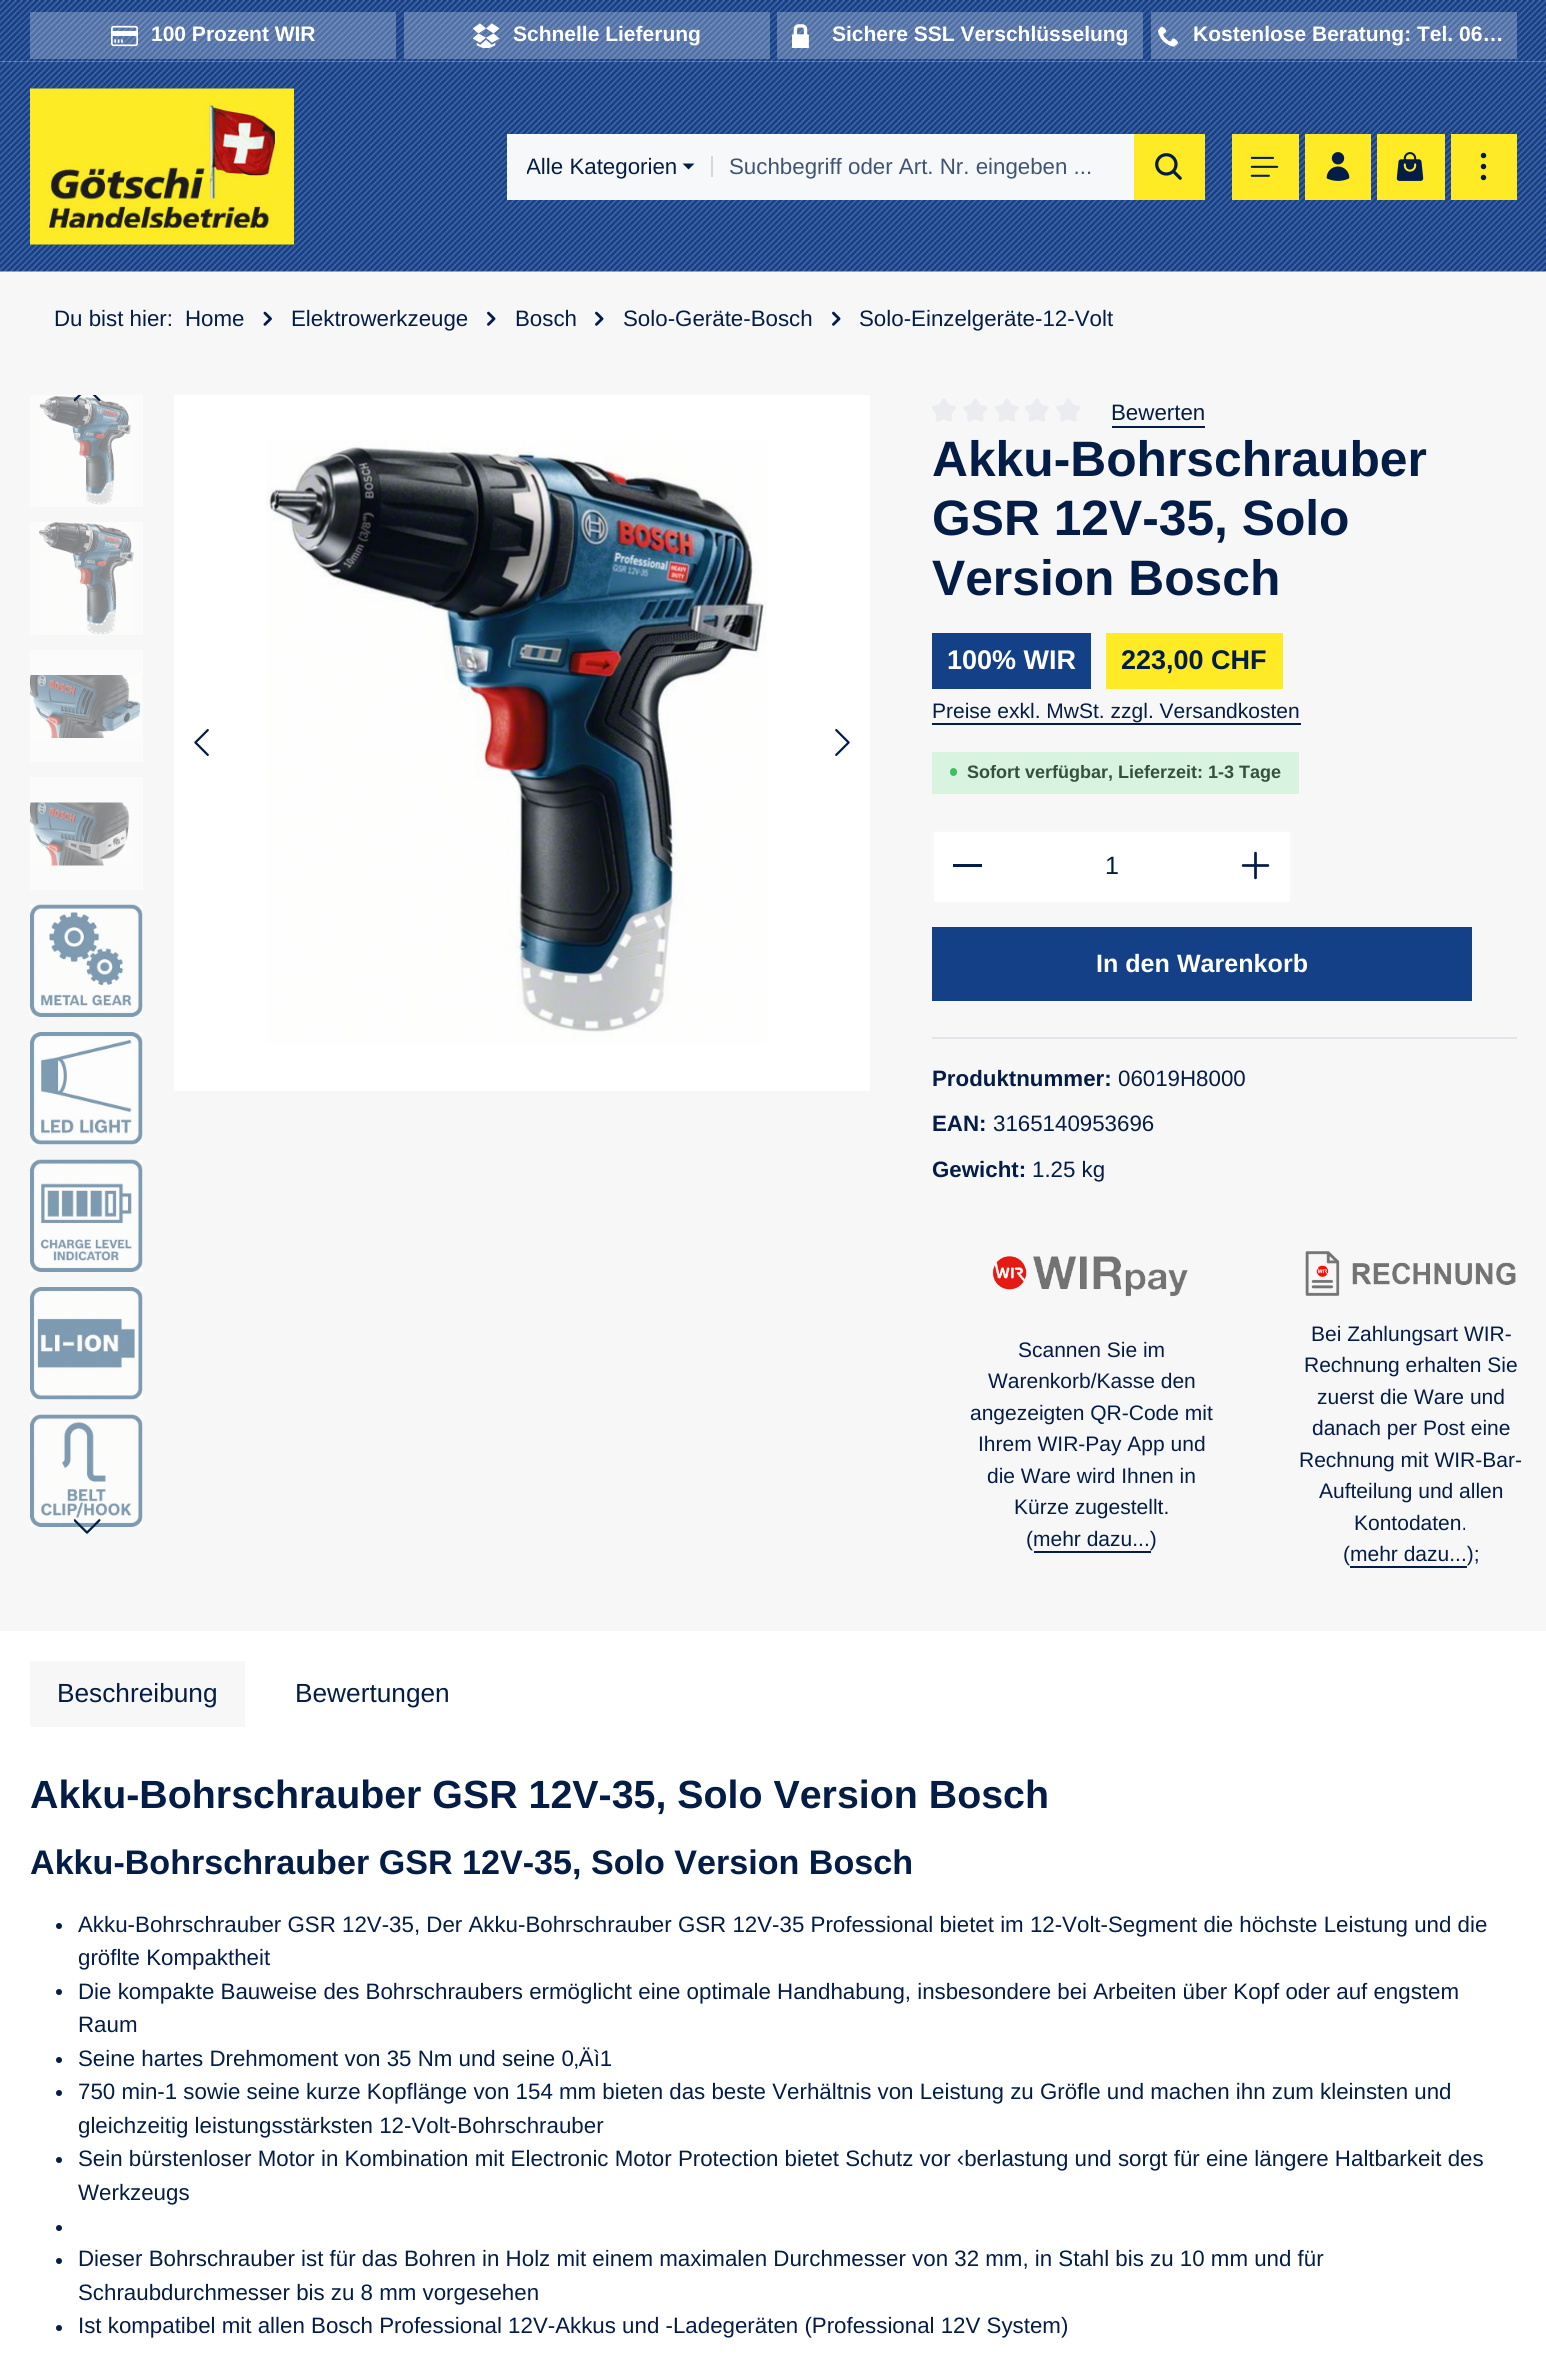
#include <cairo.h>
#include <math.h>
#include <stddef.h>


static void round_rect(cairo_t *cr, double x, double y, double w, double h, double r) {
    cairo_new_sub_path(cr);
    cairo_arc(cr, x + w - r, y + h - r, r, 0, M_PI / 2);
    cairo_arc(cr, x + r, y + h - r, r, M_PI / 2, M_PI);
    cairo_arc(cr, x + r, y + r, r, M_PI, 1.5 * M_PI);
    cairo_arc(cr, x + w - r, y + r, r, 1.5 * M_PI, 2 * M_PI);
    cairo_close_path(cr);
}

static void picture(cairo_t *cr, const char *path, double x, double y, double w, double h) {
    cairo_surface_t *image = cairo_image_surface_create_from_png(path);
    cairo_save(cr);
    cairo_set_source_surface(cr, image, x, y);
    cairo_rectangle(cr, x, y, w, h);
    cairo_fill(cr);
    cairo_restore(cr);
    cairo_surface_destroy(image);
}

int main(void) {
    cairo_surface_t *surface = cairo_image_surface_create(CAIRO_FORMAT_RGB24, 1546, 2354);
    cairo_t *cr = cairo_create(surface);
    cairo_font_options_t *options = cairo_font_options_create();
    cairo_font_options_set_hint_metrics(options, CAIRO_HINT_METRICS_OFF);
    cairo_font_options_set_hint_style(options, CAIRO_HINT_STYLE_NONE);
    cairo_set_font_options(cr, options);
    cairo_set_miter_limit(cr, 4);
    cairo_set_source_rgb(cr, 0.965, 0.965, 0.965);
    cairo_paint(cr);
    picture(cr, "img1.png", 0, 0, 1546, 62);
    cairo_set_source_rgba(cr, 1, 1, 1, 0.25);
    cairo_rectangle(cr, 30, 12, 366, 47);
    cairo_fill(cr);
    picture(cr, "img2.png", 111, 25, 27, 22);
    cairo_select_font_face(cr, "Liberation Sans", CAIRO_FONT_SLANT_NORMAL, CAIRO_FONT_WEIGHT_BOLD);
    cairo_set_font_size(cr, 21);
    cairo_set_source_rgb(cr, 1, 1, 1);
    cairo_move_to(cr, 151, 41);
    cairo_show_text(cr, "100 Prozent WIR");
    cairo_set_source_rgba(cr, 1, 1, 1, 0.25);
    cairo_rectangle(cr, 404, 12, 366, 47);
    cairo_fill(cr);
    picture(cr, "img3.png", 473, 23, 27, 25);
    cairo_set_source_rgb(cr, 1, 1, 1);
    cairo_move_to(cr, 513, 41);
    cairo_show_text(cr, "Schnelle Lieferung");
    cairo_set_source_rgba(cr, 1, 1, 1, 0.25);
    cairo_rectangle(cr, 777, 12, 366, 47);
    cairo_fill(cr);
    picture(cr, "img4.png", 792, 24, 17, 24);
    cairo_set_source_rgb(cr, 1, 1, 1);
    cairo_move_to(cr, 832, 41);
    cairo_show_text(cr, "Sichere SSL Verschlüsselung");
    cairo_set_source_rgba(cr, 1, 1, 1, 0.25);
    cairo_rectangle(cr, 1151, 12, 366, 47);
    cairo_fill(cr);
    picture(cr, "img5.png", 1158, 26, 20, 21);
    cairo_set_source_rgb(cr, 1, 1, 1);
    cairo_move_to(cr, 1193, 41);
    cairo_show_text(cr, "Kostenlose Beratung: Tel. 06…");
    picture(cr, "img6.png", 0, 61, 1546, 211);
    picture(cr, "img7.png", 30, 88, 264, 157);
    cairo_set_source_rgb(cr, 0.965, 0.969, 0.976);
    cairo_rectangle(cr, 711, 134, 425, 2);
    cairo_fill(cr);
    cairo_rectangle(cr, 711, 198, 425, 2);
    cairo_fill(cr);
    cairo_rectangle(cr, 507, 134, 206, 66);
    cairo_fill(cr);
    cairo_save(cr);
    cairo_rectangle(cr, 527, 150, 150, 33);
    cairo_clip(cr);
    cairo_select_font_face(cr, "Liberation Sans", CAIRO_FONT_SLANT_NORMAL, CAIRO_FONT_WEIGHT_NORMAL);
    cairo_set_font_size(cr, 22.3);
    cairo_set_source_rgb(cr, 0.012, 0.114, 0.275);
    cairo_move_to(cr, 526, 174);
    cairo_show_text(cr, "Alle Kategorien");
    cairo_restore(cr);
    cairo_set_source_rgb(cr, 0.012, 0.114, 0.275);
    cairo_new_path(cr);
    cairo_move_to(cr, 682.5, 163.5);
    cairo_line_to(cr, 694.5, 163.5);
    cairo_line_to(cr, 688.5, 169.5);
    cairo_close_path(cr);
    cairo_fill(cr);
    cairo_set_source_rgb(cr, 0.847, 0.847, 0.855);
    cairo_rectangle(cr, 711, 156, 2, 21);
    cairo_fill(cr);
    cairo_set_source_rgb(cr, 0.965, 0.969, 0.976);
    cairo_rectangle(cr, 713, 136, 421, 62);
    cairo_fill(cr);
    cairo_select_font_face(cr, "Liberation Sans", CAIRO_FONT_SLANT_NORMAL, CAIRO_FONT_WEIGHT_NORMAL);
    cairo_set_font_size(cr, 22.3);
    cairo_set_source_rgb(cr, 0.251, 0.329, 0.451);
    cairo_move_to(cr, 729, 174);
    cairo_show_text(cr, "Suchbegriff oder Art. Nr. eingeben ...");
    cairo_set_source_rgb(cr, 0.996, 0.918, 0.145);
    cairo_rectangle(cr, 1134, 134, 71, 66);
    cairo_fill(cr);
    picture(cr, "img8.png", 1155, 153, 27, 27);
    cairo_rectangle(cr, 1232, 134, 67, 66);
    cairo_fill(cr);
    picture(cr, "img9.png", 1250, 156, 29, 21);
    cairo_rectangle(cr, 1305, 134, 66, 66);
    cairo_fill(cr);
    picture(cr, "img10.png", 1326, 152, 24, 29);
    cairo_rectangle(cr, 1377, 134, 68, 66);
    cairo_fill(cr);
    picture(cr, "img11.png", 1396, 152, 28, 29);
    cairo_rectangle(cr, 1451, 134, 66, 66);
    cairo_fill(cr);
    picture(cr, "img12.png", 1480, 152, 7, 29);
    cairo_set_source_rgb(cr, 0.012, 0.114, 0.275);
    cairo_move_to(cr, 54, 326);
    cairo_show_text(cr, "Du bist hier:");
    cairo_move_to(cr, 185, 326);
    cairo_show_text(cr, "Home");
    picture(cr, "img13.png", 263, 311, 9, 15);
    cairo_move_to(cr, 291, 326);
    cairo_show_text(cr, "Elektrowerkzeuge");
    picture(cr, "img14.png", 487, 311, 9, 15);
    cairo_move_to(cr, 515, 326);
    cairo_show_text(cr, "Bosch");
    picture(cr, "img14.png", 595, 311, 9, 15);
    cairo_move_to(cr, 623, 326);
    cairo_show_text(cr, "Solo-Geräte-Bosch");
    picture(cr, "img14.png", 832, 311, 9, 15);
    cairo_move_to(cr, 859, 326);
    cairo_show_text(cr, "Solo-Einzelgeräte-12-Volt");
    cairo_set_source_rgb(cr, 0.984, 0.984, 0.984);
    cairo_rectangle(cr, 30, 395, 113, 112);
    cairo_fill(cr);
    picture(cr, "img15.png", 39, 396, 92, 109);
    cairo_rectangle(cr, 30, 522, 113, 113);
    cairo_fill(cr);
    picture(cr, "img16.png", 39, 522, 95, 113);
    cairo_rectangle(cr, 30, 650, 113, 112);
    cairo_fill(cr);
    picture(cr, "img17.png", 30, 675, 111, 63);
    cairo_rectangle(cr, 30, 777, 113, 113);
    cairo_fill(cr);
    picture(cr, "img18.png", 30, 802, 100, 64);
    cairo_rectangle(cr, 30, 905, 113, 112);
    cairo_fill(cr);
    picture(cr, "img19.png", 30, 904, 113, 113);
    cairo_rectangle(cr, 30, 1032, 113, 113);
    cairo_fill(cr);
    picture(cr, "img20.png", 30, 1032, 113, 113);
    cairo_rectangle(cr, 30, 1160, 113, 112);
    cairo_fill(cr);
    picture(cr, "img21.png", 30, 1159, 113, 113);
    cairo_rectangle(cr, 30, 1287, 113, 113);
    cairo_fill(cr);
    picture(cr, "img22.png", 30, 1287, 113, 113);
    cairo_rectangle(cr, 30, 1415, 113, 112);
    cairo_fill(cr);
    picture(cr, "img23.png", 30, 1414, 113, 113);
    picture(cr, "img24.png", 74, 395, 27, 7);
    picture(cr, "img25.png", 74, 1519, 27, 15);
    cairo_set_source_rgb(cr, 1, 1, 1);
    cairo_rectangle(cr, 174, 395, 696, 696);
    cairo_fill(cr);
    picture(cr, "img26.png", 266, 440, 501, 605);
    picture(cr, "img27.png", 194, 729, 15, 27);
    picture(cr, "img28.png", 835, 729, 15, 27);
    picture(cr, "img29.png", 932, 398, 24, 24);
    picture(cr, "img30.png", 963, 398, 25, 24);
    picture(cr, "img29.png", 995, 398, 24, 24);
    picture(cr, "img29.png", 1025, 398, 24, 24);
    picture(cr, "img31.png", 1056, 398, 24, 24);
    cairo_set_source_rgb(cr, 0.012, 0.114, 0.275);
    cairo_move_to(cr, 1111, 420);
    cairo_show_text(cr, "Bewerten");
    cairo_rectangle(cr, 1112, 426, 93, 2);
    cairo_fill(cr);
    cairo_select_font_face(cr, "Liberation Sans", CAIRO_FONT_SLANT_NORMAL, CAIRO_FONT_WEIGHT_BOLD);
    cairo_set_font_size(cr, 49.75);
    cairo_move_to(cr, 932, 476);
    cairo_show_text(cr, "Akku-Bohrschrauber");
    cairo_move_to(cr, 932, 535);
    cairo_show_text(cr, "GSR 12V-35, Solo");
    cairo_move_to(cr, 932, 595);
    cairo_show_text(cr, "Version Bosch");
    cairo_set_source_rgb(cr, 0.078, 0.251, 0.525);
    cairo_rectangle(cr, 932, 633, 159, 56);
    cairo_fill(cr);
    cairo_set_font_size(cr, 27);
    cairo_set_source_rgb(cr, 1, 1, 1);
    cairo_move_to(cr, 947, 669);
    cairo_show_text(cr, "100% WIR");
    cairo_set_source_rgb(cr, 0.996, 0.918, 0.145);
    cairo_rectangle(cr, 1106, 633, 177, 56);
    cairo_fill(cr);
    cairo_set_source_rgb(cr, 0.012, 0.114, 0.275);
    cairo_move_to(cr, 1121, 669);
    cairo_show_text(cr, "223,00 CHF");
    cairo_select_font_face(cr, "Liberation Sans", CAIRO_FONT_SLANT_NORMAL, CAIRO_FONT_WEIGHT_NORMAL);
    cairo_set_font_size(cr, 21);
    cairo_move_to(cr, 932, 718);
    cairo_show_text(cr, "Preise exkl. MwSt. zzgl. Versandkosten");
    cairo_rectangle(cr, 932, 723, 369, 2);
    cairo_fill(cr);
    cairo_set_source_rgb(cr, 0.847, 0.953, 0.875);
    cairo_rectangle(cr, 932, 752, 367, 42);
    cairo_fill(cr);
    cairo_set_source_rgb(cr, 0.235, 0.761, 0.38);
    round_rect(cr, 950, 768, 7, 8, 3.5);
    cairo_fill(cr);
    cairo_select_font_face(cr, "Liberation Sans", CAIRO_FONT_SLANT_NORMAL, CAIRO_FONT_WEIGHT_BOLD);
    cairo_set_font_size(cr, 18);
    cairo_set_source_rgb(cr, 0.208, 0.314, 0.235);
    cairo_move_to(cr, 967, 778);
    cairo_show_text(cr, "Sofort verfügbar, Lieferzeit: 1-3 Tage");
    cairo_set_source_rgb(cr, 0.965, 0.969, 0.976);
    cairo_rectangle(cr, 932, 830, 360, 2);
    cairo_fill(cr);
    cairo_rectangle(cr, 932, 902, 291, 2);
    cairo_fill(cr);
    cairo_rectangle(cr, 932, 830, 2, 73);
    cairo_fill(cr);
    cairo_set_source_rgb(cr, 1, 1, 1);
    cairo_rectangle(cr, 934, 832, 356, 70);
    cairo_fill(cr);
    cairo_set_source_rgb(cr, 0.012, 0.114, 0.275);
    cairo_rectangle(cr, 953, 864, 29, 3);
    cairo_fill(cr);
    cairo_select_font_face(cr, "Liberation Sans", CAIRO_FONT_SLANT_NORMAL, CAIRO_FONT_WEIGHT_NORMAL);
    cairo_set_font_size(cr, 25.1);
    cairo_move_to(cr, 1105, 874);
    cairo_show_text(cr, "1");
    cairo_set_source_rgb(cr, 0.965, 0.969, 0.976);
    cairo_rectangle(cr, 1290, 830, 2, 73);
    cairo_fill(cr);
    cairo_rectangle(cr, 1221, 902, 71, 2);
    cairo_fill(cr);
    picture(cr, "img32.png", 1241, 851, 29, 29);
    cairo_set_source_rgb(cr, 0.078, 0.251, 0.525);
    cairo_rectangle(cr, 932, 927, 540, 74);
    cairo_fill(cr);
    cairo_select_font_face(cr, "Liberation Sans", CAIRO_FONT_SLANT_NORMAL, CAIRO_FONT_WEIGHT_BOLD);
    cairo_set_source_rgb(cr, 1, 1, 1);
    cairo_move_to(cr, 1096, 972);
    cairo_show_text(cr, "In den Warenkorb");
    cairo_set_source_rgb(cr, 0.886, 0.894, 0.914);
    cairo_rectangle(cr, 932, 1037, 585, 2);
    cairo_fill(cr);
    cairo_set_font_size(cr, 22.3);
    cairo_set_source_rgb(cr, 0.012, 0.114, 0.275);
    cairo_move_to(cr, 932, 1086);
    cairo_show_text(cr, "Produktnummer:");
    cairo_select_font_face(cr, "Liberation Sans", CAIRO_FONT_SLANT_NORMAL, CAIRO_FONT_WEIGHT_NORMAL);
    cairo_move_to(cr, 1118, 1086);
    cairo_show_text(cr, "06019H8000");
    cairo_select_font_face(cr, "Liberation Sans", CAIRO_FONT_SLANT_NORMAL, CAIRO_FONT_WEIGHT_BOLD);
    cairo_move_to(cr, 932, 1131);
    cairo_show_text(cr, "EAN:");
    cairo_select_font_face(cr, "Liberation Sans", CAIRO_FONT_SLANT_NORMAL, CAIRO_FONT_WEIGHT_NORMAL);
    cairo_move_to(cr, 993, 1131);
    cairo_show_text(cr, "3165140953696");
    cairo_select_font_face(cr, "Liberation Sans", CAIRO_FONT_SLANT_NORMAL, CAIRO_FONT_WEIGHT_BOLD);
    cairo_move_to(cr, 932, 1177);
    cairo_show_text(cr, "Gewicht:");
    cairo_select_font_face(cr, "Liberation Sans", CAIRO_FONT_SLANT_NORMAL, CAIRO_FONT_WEIGHT_NORMAL);
    cairo_move_to(cr, 1032, 1177);
    cairo_show_text(cr, "1.25 kg");
    picture(cr, "img33.png", 992, 1256, 196, 41);
    picture(cr, "img34.png", 1305, 1251, 211, 45);
    cairo_set_font_size(cr, 21);
    cairo_move_to(cr, 1018, 1357);
    cairo_show_text(cr, "Scannen Sie im");
    cairo_move_to(cr, 988, 1388);
    cairo_show_text(cr, "Warenkorb/Kasse den");
    cairo_move_to(cr, 970, 1420);
    cairo_show_text(cr, "angezeigten QR-Code mit");
    cairo_move_to(cr, 978, 1451);
    cairo_show_text(cr, "Ihrem WIR-Pay App und");
    cairo_move_to(cr, 987, 1483);
    cairo_show_text(cr, "die Ware wird Ihnen in");
    cairo_move_to(cr, 1014, 1514);
    cairo_show_text(cr, "Kürze zugestellt.");
    cairo_move_to(cr, 1026, 1546);
    cairo_show_text(cr, "(mehr dazu...)");
    cairo_rectangle(cr, 1034, 1551, 117, 2);
    cairo_fill(cr);
    cairo_move_to(cr, 1311, 1341);
    cairo_show_text(cr, "Bei Zahlungsart WIR-");
    cairo_move_to(cr, 1304, 1372);
    cairo_show_text(cr, "Rechnung erhalten Sie");
    cairo_move_to(cr, 1317, 1404);
    cairo_show_text(cr, "zuerst die Ware und");
    cairo_move_to(cr, 1312, 1435);
    cairo_show_text(cr, "danach per Post eine");
    cairo_move_to(cr, 1299, 1467);
    cairo_show_text(cr, "Rechnung mit WIR-Bar-");
    cairo_move_to(cr, 1319, 1498);
    cairo_show_text(cr, "Aufteilung und allen");
    cairo_move_to(cr, 1354, 1530);
    cairo_show_text(cr, "Kontodaten.");
    cairo_move_to(cr, 1343, 1561);
    cairo_show_text(cr, "(mehr dazu...);");
    cairo_rectangle(cr, 1350, 1566, 117, 2);
    cairo_fill(cr);
    cairo_set_source_rgb(cr, 1, 1, 1);
    cairo_rectangle(cr, 0, 1631, 1546, 723);
    cairo_fill(cr);
    cairo_set_source_rgb(cr, 0.965, 0.965, 0.965);
    cairo_rectangle(cr, 30, 1661, 215, 66);
    cairo_fill(cr);
    cairo_set_font_size(cr, 26.25);
    cairo_set_source_rgb(cr, 0.012, 0.114, 0.275);
    cairo_move_to(cr, 57, 1702);
    cairo_show_text(cr, "Beschreibung");
    cairo_move_to(cr, 295, 1702);
    cairo_show_text(cr, "Bewertungen");
    cairo_select_font_face(cr, "Liberation Sans", CAIRO_FONT_SLANT_NORMAL, CAIRO_FONT_WEIGHT_BOLD);
    cairo_set_font_size(cr, 39.35);
    cairo_move_to(cr, 30, 1808);
    cairo_show_text(cr, "Akku-Bohrschrauber GSR 12V-35, Solo Version Bosch");
    cairo_set_font_size(cr, 34.1);
    cairo_move_to(cr, 30, 1874);
    cairo_show_text(cr, "Akku-Bohrschrauber GSR 12V-35, Solo Version Bosch");
    cairo_new_path(cr);
    cairo_arc(cr, 59, 1926, 3, 0, 2 * M_PI);
    cairo_fill(cr);
    cairo_select_font_face(cr, "Liberation Sans", CAIRO_FONT_SLANT_NORMAL, CAIRO_FONT_WEIGHT_NORMAL);
    cairo_set_font_size(cr, 22.3);
    cairo_move_to(cr, 78, 1932);
    cairo_show_text(cr, "Akku-Bohrschrauber GSR 12V-35, Der Akku-Bohrschrauber GSR 12V-35 Professional bietet im 12-Volt-Segment die höchste Leistung und die");
    cairo_move_to(cr, 78, 1965);
    cairo_show_text(cr, "gröﬂte Kompaktheit");
    cairo_new_path(cr);
    cairo_arc(cr, 59, 1992, 3, 0, 2 * M_PI);
    cairo_fill(cr);
    cairo_move_to(cr, 78, 1999);
    cairo_show_text(cr, "Die kompakte Bauweise des Bohrschraubers ermöglicht eine optimale Handhabung, insbesondere bei Arbeiten über Kopf oder auf engstem");
    cairo_move_to(cr, 78, 2032);
    cairo_show_text(cr, "Raum");
    cairo_new_path(cr);
    cairo_arc(cr, 59, 2060, 3, 0, 2 * M_PI);
    cairo_fill(cr);
    cairo_move_to(cr, 78, 2066);
    cairo_show_text(cr, "Seine hartes Drehmoment von 35 Nm und seine 0‚Äì1");
    cairo_new_path(cr);
    cairo_arc(cr, 59, 2093, 3, 0, 2 * M_PI);
    cairo_fill(cr);
    cairo_move_to(cr, 78, 2099);
    cairo_show_text(cr, "750 min-1 sowie seine kurze Kopflänge von 154 mm bieten das beste Verhältnis von Leistung zu Gröﬂe und machen ihn zum kleinsten und");
    cairo_move_to(cr, 78, 2133);
    cairo_show_text(cr, "gleichzeitig leistungsstärksten 12-Volt-Bohrschrauber");
    cairo_new_path(cr);
    cairo_arc(cr, 59, 2160, 3, 0, 2 * M_PI);
    cairo_fill(cr);
    cairo_move_to(cr, 78, 2166);
    cairo_show_text(cr, "Sein bürstenloser Motor in Kombination mit Electronic Motor Protection bietet Schutz vor ‹berlastung und sorgt für eine längere Haltbarkeit des");
    cairo_move_to(cr, 78, 2200);
    cairo_show_text(cr, "Werkzeugs");
    cairo_new_path(cr);
    cairo_arc(cr, 59, 2228, 3, 0, 2 * M_PI);
    cairo_fill(cr);
    cairo_arc(cr, 59, 2261, 3, 0, 2 * M_PI);
    cairo_fill(cr);
    cairo_move_to(cr, 78, 2266);
    cairo_show_text(cr, "Dieser Bohrschrauber ist für das Bohren in Holz mit einem maximalen Durchmesser von 32 mm, in Stahl bis zu 10 mm und für");
    cairo_move_to(cr, 78, 2300);
    cairo_show_text(cr, "Schraubdurchmesser bis zu 8 mm vorgesehen");
    cairo_new_path(cr);
    cairo_arc(cr, 59, 2328, 3, 0, 2 * M_PI);
    cairo_fill(cr);
    cairo_move_to(cr, 78, 2333);
    cairo_show_text(cr, "Ist kompatibel mit allen Bosch Professional 12V-Akkus und -Ladegeräten (Professional 12V System)");
    cairo_surface_write_to_png(surface, "page.png");
    cairo_font_options_destroy(options);
    cairo_destroy(cr);
    cairo_surface_destroy(surface);
    return 0;
}
